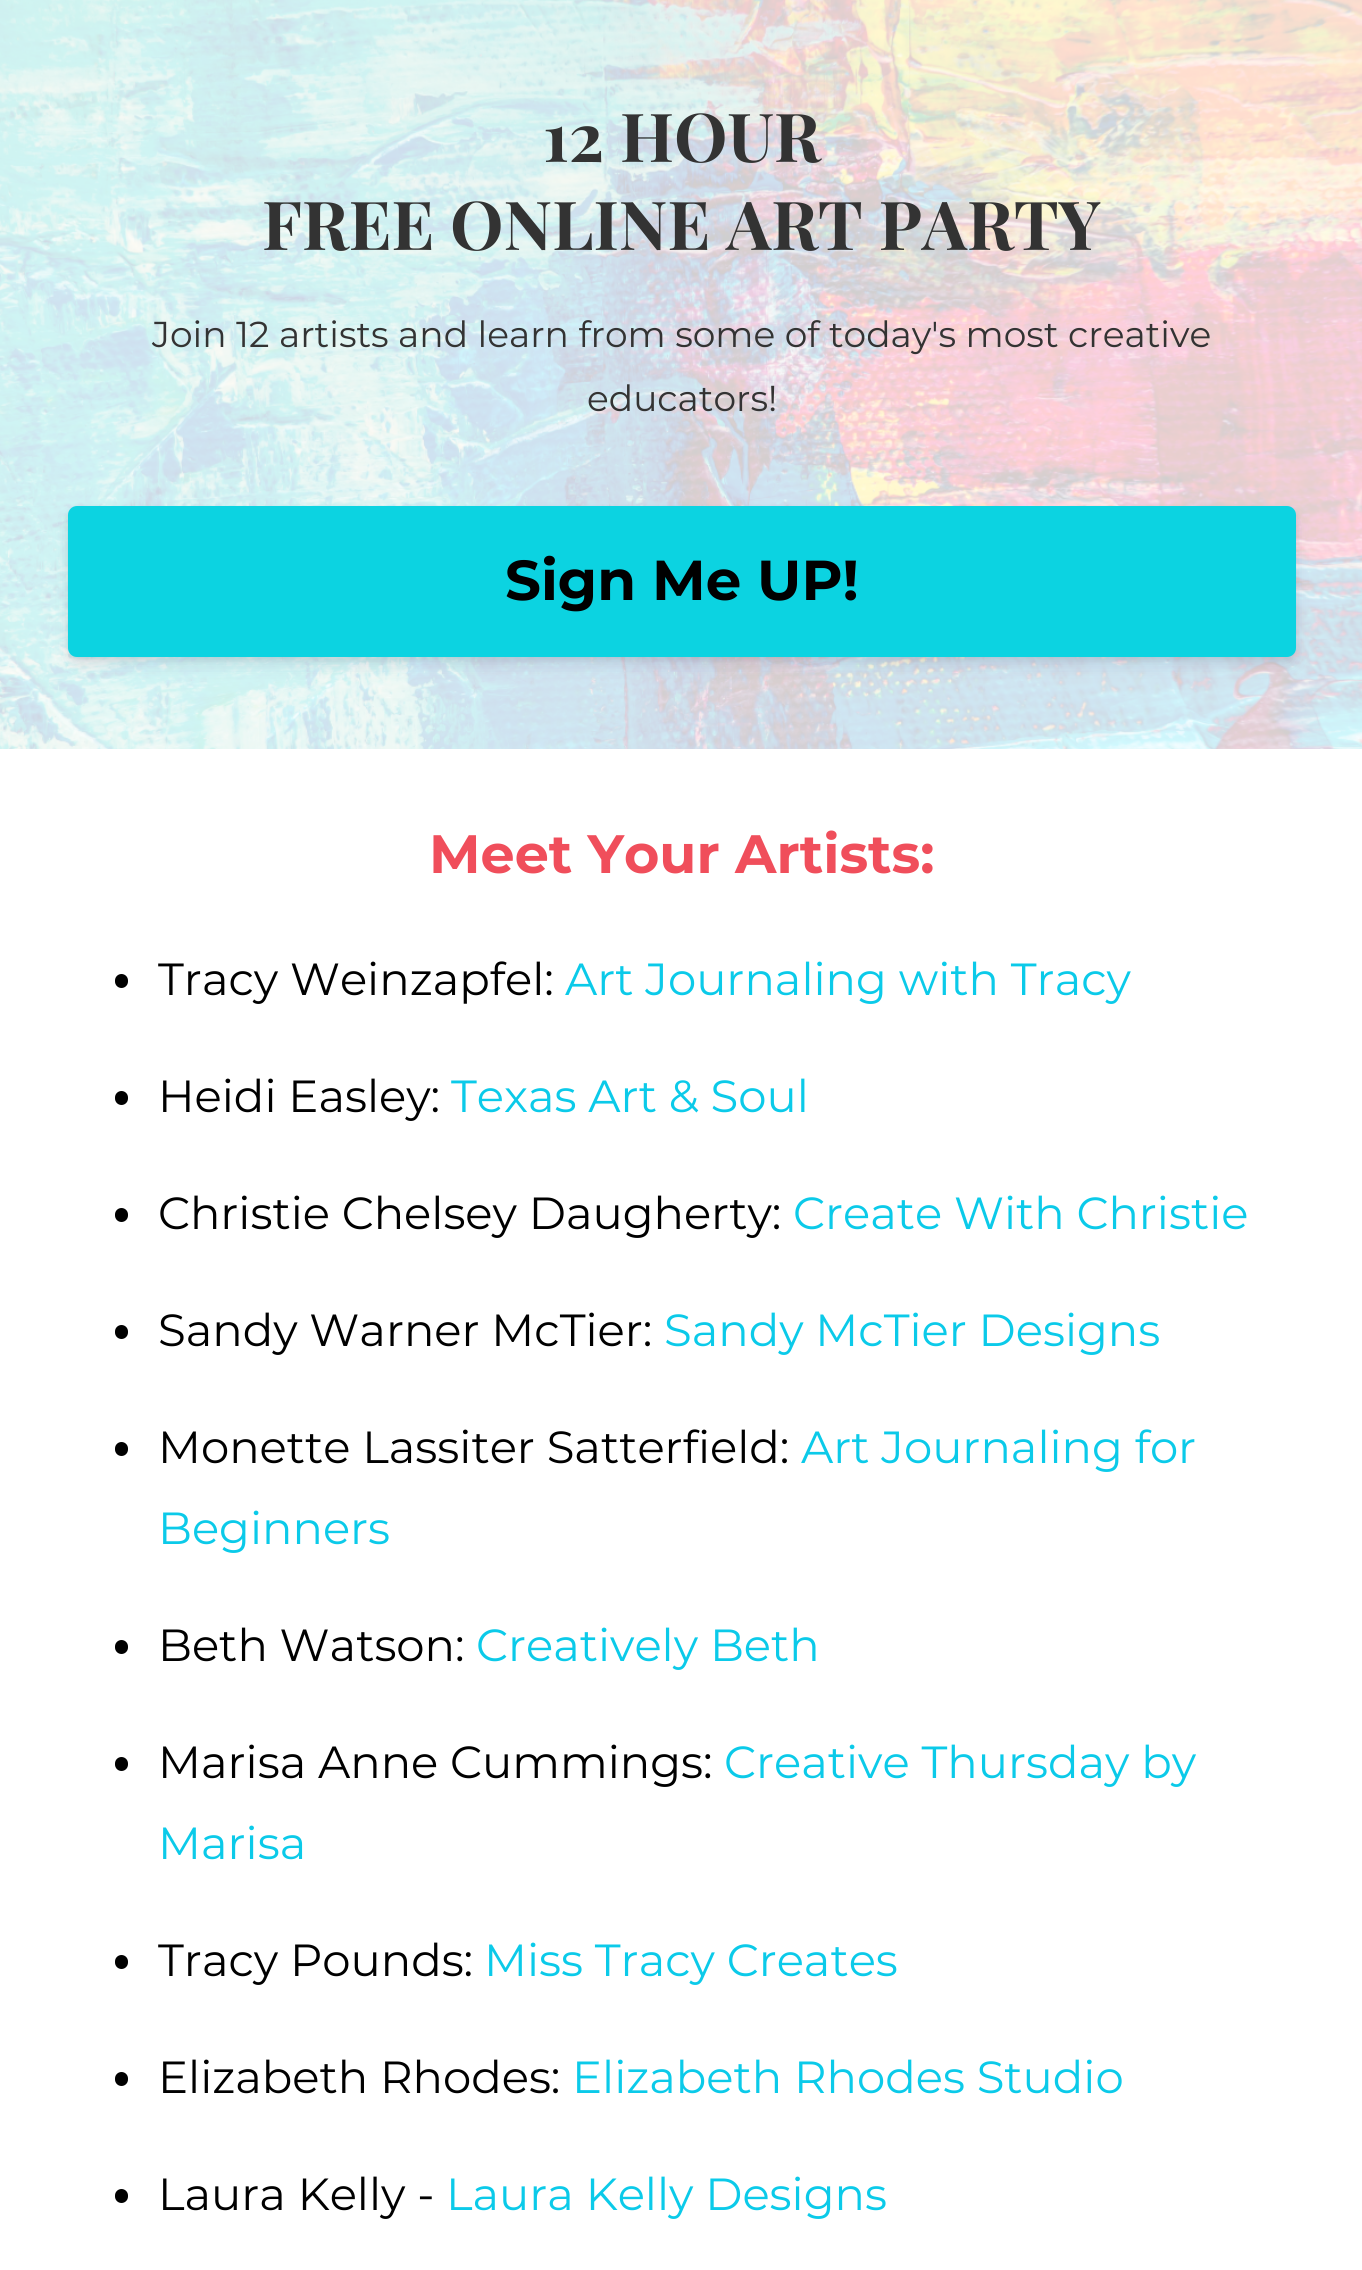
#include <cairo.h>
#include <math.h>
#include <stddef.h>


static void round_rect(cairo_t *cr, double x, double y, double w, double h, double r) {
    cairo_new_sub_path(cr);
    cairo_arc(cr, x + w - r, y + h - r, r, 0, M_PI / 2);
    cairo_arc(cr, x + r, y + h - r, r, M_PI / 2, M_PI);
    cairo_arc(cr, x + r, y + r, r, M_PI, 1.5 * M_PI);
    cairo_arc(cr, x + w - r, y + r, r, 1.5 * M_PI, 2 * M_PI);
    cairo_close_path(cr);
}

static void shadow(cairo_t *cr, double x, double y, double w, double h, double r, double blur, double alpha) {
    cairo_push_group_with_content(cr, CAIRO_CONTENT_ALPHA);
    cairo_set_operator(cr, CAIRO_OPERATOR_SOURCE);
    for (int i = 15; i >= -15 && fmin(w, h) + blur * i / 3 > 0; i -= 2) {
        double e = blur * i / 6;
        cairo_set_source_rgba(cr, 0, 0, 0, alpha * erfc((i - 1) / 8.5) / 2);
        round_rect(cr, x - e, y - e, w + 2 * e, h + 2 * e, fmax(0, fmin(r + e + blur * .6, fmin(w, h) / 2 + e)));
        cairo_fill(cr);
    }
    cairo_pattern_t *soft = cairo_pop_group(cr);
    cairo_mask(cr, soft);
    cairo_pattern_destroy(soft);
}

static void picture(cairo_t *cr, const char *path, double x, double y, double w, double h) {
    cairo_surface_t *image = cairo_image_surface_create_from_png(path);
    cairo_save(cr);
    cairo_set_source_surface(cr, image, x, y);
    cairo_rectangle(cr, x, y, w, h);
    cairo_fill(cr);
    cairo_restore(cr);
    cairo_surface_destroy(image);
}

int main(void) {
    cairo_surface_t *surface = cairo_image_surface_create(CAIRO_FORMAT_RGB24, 1362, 2270);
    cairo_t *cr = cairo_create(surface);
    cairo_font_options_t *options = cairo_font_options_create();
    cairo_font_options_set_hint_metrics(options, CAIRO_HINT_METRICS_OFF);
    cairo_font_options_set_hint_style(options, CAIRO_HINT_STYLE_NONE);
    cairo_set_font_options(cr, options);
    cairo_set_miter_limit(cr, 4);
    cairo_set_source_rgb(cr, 1, 1, 1);
    cairo_paint(cr);
    picture(cr, "img1.png", 0, 0, 1362, 749);
    cairo_select_font_face(cr, "Playfair Display", CAIRO_FONT_SLANT_NORMAL, CAIRO_FONT_WEIGHT_BOLD);
    cairo_set_font_size(cr, 67.5);
    cairo_set_source_rgb(cr, 0.2, 0.2, 0.2);
    cairo_move_to(cr, 543, 162);
    cairo_show_text(cr, "12 HOUR");
    cairo_move_to(cr, 262, 250);
    cairo_show_text(cr, "FREE ONLINE ART PARTY");
    cairo_select_font_face(cr, "Montserrat", CAIRO_FONT_SLANT_NORMAL, CAIRO_FONT_WEIGHT_NORMAL);
    cairo_set_font_size(cr, 36);
    cairo_move_to(cr, 152, 347);
    cairo_show_text(cr, "Join 12 artists and learn from some of today's most creative");
    cairo_move_to(cr, 587, 411);
    cairo_show_text(cr, "educators!");
    cairo_set_source_rgb(cr, 0, 0, 0);
    shadow(cr, 68, 509, 1228, 150, 9, 3.5, 0.08);
    cairo_set_source_rgb(cr, 0.196, 0.196, 0.365);
    shadow(cr, 68, 515, 1228, 151, 9, 7, 0.11);
    cairo_set_source_rgb(cr, 0.047, 0.827, 0.882);
    round_rect(cr, 70.5, 508.5, 1223, 146, 6.5);
    cairo_fill_preserve(cr);
    cairo_set_line_width(cr, 5);
    cairo_stroke(cr);
    cairo_select_font_face(cr, "Montserrat", CAIRO_FONT_SLANT_NORMAL, CAIRO_FONT_WEIGHT_BOLD);
    cairo_set_font_size(cr, 56.25);
    cairo_set_source_rgb(cr, 0, 0, 0);
    cairo_move_to(cr, 505, 600);
    cairo_show_text(cr, "Sign Me UP!");
    cairo_set_font_size(cr, 54);
    cairo_set_source_rgb(cr, 0.941, 0.306, 0.357);
    cairo_move_to(cr, 429, 873);
    cairo_show_text(cr, "Meet Your Artists:");
    cairo_set_source_rgb(cr, 0, 0, 0);
    round_rect(cr, 115, 974, 13, 14, 6.5);
    cairo_fill(cr);
    cairo_select_font_face(cr, "Montserrat", CAIRO_FONT_SLANT_NORMAL, CAIRO_FONT_WEIGHT_NORMAL);
    cairo_set_font_size(cr, 45);
    cairo_move_to(cr, 158, 995);
    cairo_show_text(cr, "Tracy Weinzapfel:");
    cairo_set_source_rgb(cr, 0.043, 0.792, 0.914);
    cairo_move_to(cr, 565, 995);
    cairo_show_text(cr, "Art Journaling with Tracy");
    cairo_set_source_rgb(cr, 0, 0, 0);
    round_rect(cr, 115, 1091, 13, 14, 6.5);
    cairo_fill(cr);
    cairo_move_to(cr, 158, 1112);
    cairo_show_text(cr, "Heidi Easley:");
    cairo_set_source_rgb(cr, 0.043, 0.792, 0.914);
    cairo_move_to(cr, 451, 1112);
    cairo_show_text(cr, "Texas Art & Soul");
    cairo_set_source_rgb(cr, 0, 0, 0);
    round_rect(cr, 115, 1208, 13, 14, 6.5);
    cairo_fill(cr);
    cairo_move_to(cr, 158, 1229);
    cairo_show_text(cr, "Christie Chelsey Daugherty:");
    cairo_set_source_rgb(cr, 0.043, 0.792, 0.914);
    cairo_move_to(cr, 793, 1229);
    cairo_show_text(cr, "Create With Christie");
    cairo_set_source_rgb(cr, 0, 0, 0);
    round_rect(cr, 115, 1325, 13, 14, 6.5);
    cairo_fill(cr);
    cairo_move_to(cr, 158, 1346);
    cairo_show_text(cr, "Sandy Warner McTier:");
    cairo_set_source_rgb(cr, 0.043, 0.792, 0.914);
    cairo_move_to(cr, 664, 1346);
    cairo_show_text(cr, "Sandy McTier Designs");
    cairo_set_source_rgb(cr, 0, 0, 0);
    round_rect(cr, 115, 1442, 13, 14, 6.5);
    cairo_fill(cr);
    cairo_move_to(cr, 158, 1463);
    cairo_show_text(cr, "Monette Lassiter Satterfield:");
    cairo_set_source_rgb(cr, 0.043, 0.792, 0.914);
    cairo_move_to(cr, 801, 1463);
    cairo_show_text(cr, "Art Journaling for");
    cairo_move_to(cr, 158, 1544);
    cairo_show_text(cr, "Beginners");
    cairo_set_source_rgb(cr, 0, 0, 0);
    round_rect(cr, 115, 1640, 13, 14, 6.5);
    cairo_fill(cr);
    cairo_move_to(cr, 158, 1661);
    cairo_show_text(cr, "Beth Watson:");
    cairo_set_source_rgb(cr, 0.043, 0.792, 0.914);
    cairo_move_to(cr, 476, 1661);
    cairo_show_text(cr, "Creatively Beth");
    cairo_set_source_rgb(cr, 0, 0, 0);
    round_rect(cr, 115, 1757, 13, 14, 6.5);
    cairo_fill(cr);
    cairo_move_to(cr, 158, 1778);
    cairo_show_text(cr, "Marisa Anne Cummings:");
    cairo_set_source_rgb(cr, 0.043, 0.792, 0.914);
    cairo_move_to(cr, 724, 1778);
    cairo_show_text(cr, "Creative Thursday by");
    cairo_move_to(cr, 158, 1859);
    cairo_show_text(cr, "Marisa");
    cairo_set_source_rgb(cr, 0, 0, 0);
    round_rect(cr, 115, 1955, 13, 14, 6.5);
    cairo_fill(cr);
    cairo_move_to(cr, 158, 1976);
    cairo_show_text(cr, "Tracy Pounds:");
    cairo_set_source_rgb(cr, 0.043, 0.792, 0.914);
    cairo_move_to(cr, 484, 1976);
    cairo_show_text(cr, "Miss Tracy Creates");
    cairo_set_source_rgb(cr, 0, 0, 0);
    round_rect(cr, 115, 2072, 13, 14, 6.5);
    cairo_fill(cr);
    cairo_move_to(cr, 158, 2093);
    cairo_show_text(cr, "Elizabeth Rhodes:");
    cairo_set_source_rgb(cr, 0.043, 0.792, 0.914);
    cairo_move_to(cr, 572, 2093);
    cairo_show_text(cr, "Elizabeth Rhodes Studio");
    cairo_set_source_rgb(cr, 0, 0, 0);
    round_rect(cr, 115, 2189, 13, 14, 6.5);
    cairo_fill(cr);
    cairo_move_to(cr, 158, 2210);
    cairo_show_text(cr, "Laura Kelly -");
    cairo_set_source_rgb(cr, 0.043, 0.792, 0.914);
    cairo_move_to(cr, 446, 2210);
    cairo_show_text(cr, "Laura Kelly Designs");
    cairo_surface_write_to_png(surface, "page.png");
    cairo_font_options_destroy(options);
    cairo_destroy(cr);
    cairo_surface_destroy(surface);
    return 0;
}
